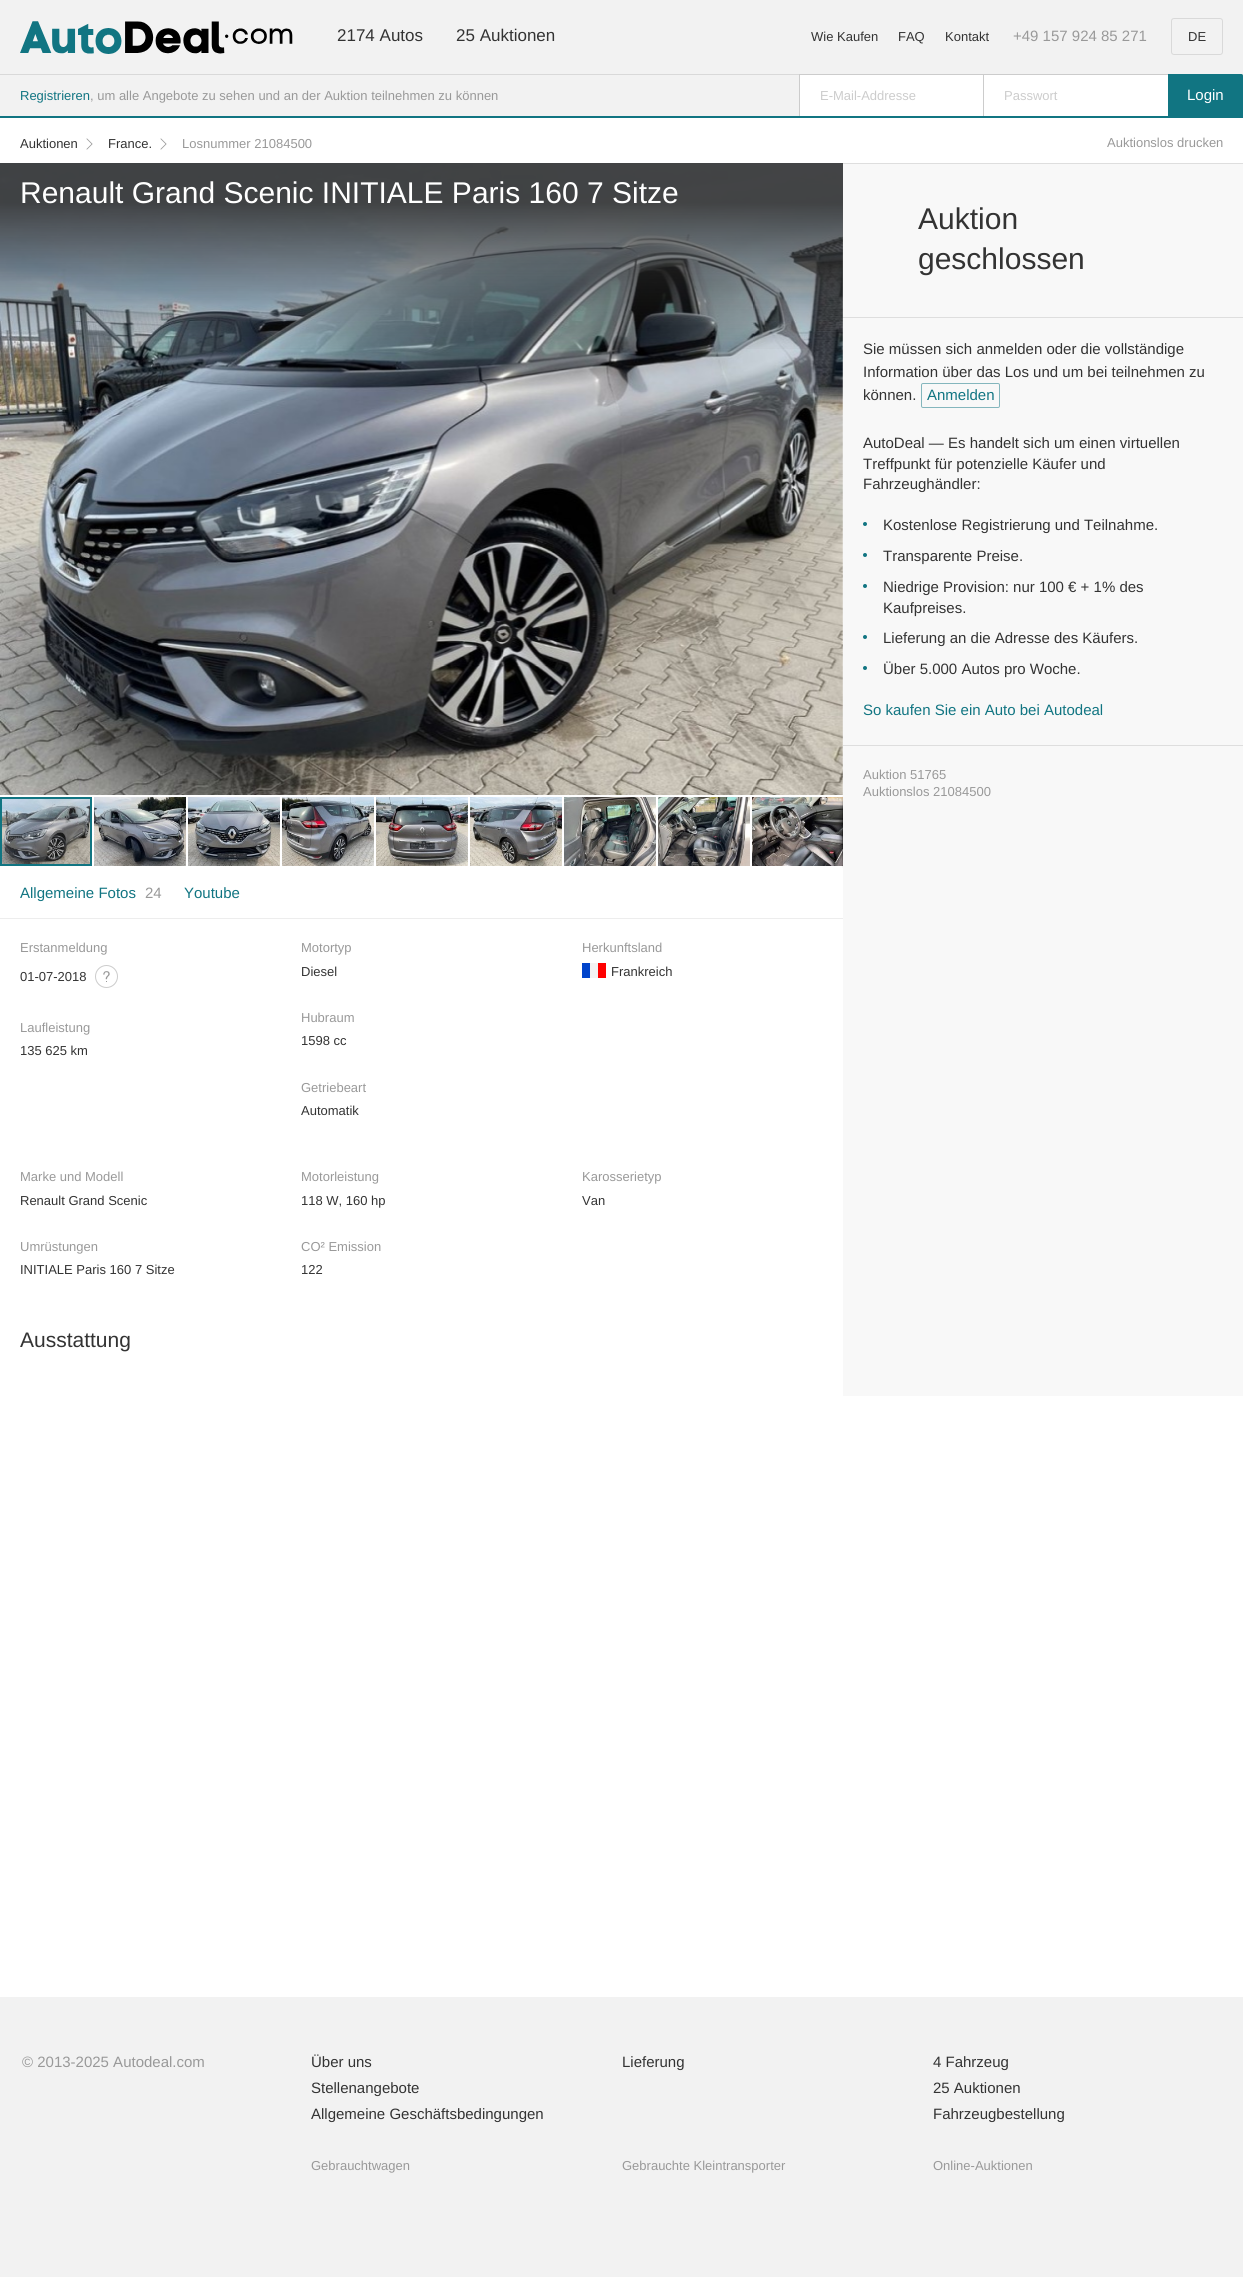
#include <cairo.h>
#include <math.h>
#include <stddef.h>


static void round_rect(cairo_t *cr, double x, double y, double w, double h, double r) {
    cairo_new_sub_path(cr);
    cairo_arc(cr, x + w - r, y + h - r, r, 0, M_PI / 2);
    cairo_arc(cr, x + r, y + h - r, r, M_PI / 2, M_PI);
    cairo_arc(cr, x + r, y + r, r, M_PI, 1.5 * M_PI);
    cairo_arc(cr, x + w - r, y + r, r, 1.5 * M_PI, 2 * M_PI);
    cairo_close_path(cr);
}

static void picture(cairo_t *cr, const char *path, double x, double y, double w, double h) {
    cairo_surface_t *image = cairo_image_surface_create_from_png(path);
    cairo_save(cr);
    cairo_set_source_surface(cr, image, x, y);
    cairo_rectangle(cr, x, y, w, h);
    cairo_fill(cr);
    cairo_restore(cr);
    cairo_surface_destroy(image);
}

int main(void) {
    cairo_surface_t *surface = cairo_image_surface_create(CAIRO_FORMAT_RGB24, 1243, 2277);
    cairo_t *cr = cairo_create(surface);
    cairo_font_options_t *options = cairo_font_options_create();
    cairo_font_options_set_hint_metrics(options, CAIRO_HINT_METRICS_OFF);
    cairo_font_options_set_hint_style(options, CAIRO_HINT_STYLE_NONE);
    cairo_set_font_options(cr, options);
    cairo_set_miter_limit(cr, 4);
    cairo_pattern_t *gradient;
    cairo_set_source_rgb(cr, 1, 1, 1);
    cairo_paint(cr);
    cairo_set_source_rgb(cr, 0.949, 0.949, 0.949);
    cairo_rectangle(cr, 0, 0, 1243, 116);
    cairo_fill(cr);
    picture(cr, "img1.png", 20, 21, 273, 33);
    cairo_select_font_face(cr, "Liberation Sans", CAIRO_FONT_SLANT_NORMAL, CAIRO_FONT_WEIGHT_NORMAL);
    cairo_set_font_size(cr, 17);
    cairo_set_source_rgb(cr, 0.2, 0.2, 0.2);
    cairo_move_to(cr, 337, 41);
    cairo_show_text(cr, "2174 Autos");
    cairo_move_to(cr, 456, 41);
    cairo_show_text(cr, "25 Auktionen");
    cairo_set_font_size(cr, 13);
    cairo_move_to(cr, 811, 41);
    cairo_show_text(cr, "Wie Kaufen");
    cairo_move_to(cr, 898, 41);
    cairo_show_text(cr, "FAQ");
    cairo_move_to(cr, 945, 41);
    cairo_show_text(cr, "Kontakt");
    cairo_set_font_size(cr, 15);
    cairo_set_source_rgb(cr, 0.6, 0.6, 0.6);
    cairo_move_to(cr, 1013, 41);
    cairo_show_text(cr, "+49 157 924 85 271");
    round_rect(cr, 1171.5, 18.5, 51, 36, 2.5);
    cairo_set_source_rgb(cr, 0.851, 0.851, 0.851);
    cairo_set_line_width(cr, 1);
    cairo_stroke(cr);
    cairo_set_font_size(cr, 13);
    cairo_set_source_rgb(cr, 0.2, 0.2, 0.2);
    cairo_move_to(cr, 1188, 41);
    cairo_show_text(cr, "DE");
    cairo_set_source_rgb(cr, 0.851, 0.851, 0.851);
    cairo_rectangle(cr, 0, 74, 1243, 1);
    cairo_fill(cr);
    cairo_set_source_rgb(cr, 0.067, 0.459, 0.51);
    cairo_move_to(cr, 20, 100);
    cairo_show_text(cr, "Registrieren");
    cairo_set_source_rgb(cr, 0.6, 0.6, 0.6);
    cairo_move_to(cr, 90, 100);
    cairo_show_text(cr, ", um alle Angebote zu sehen und an der Auktion teilnehmen zu können");
    cairo_set_source_rgb(cr, 1, 1, 1);
    cairo_rectangle(cr, 800, 75, 183, 41);
    cairo_fill(cr);
    cairo_rectangle(cr, 799.5, 74.5, 184, 43);
    cairo_set_source_rgb(cr, 0.8, 0.8, 0.8);
    cairo_stroke(cr);
    cairo_move_to(cr, 820, 100);
    cairo_show_text(cr, "E-Mail-Addresse");
    cairo_set_source_rgb(cr, 1, 1, 1);
    cairo_rectangle(cr, 984, 75, 184, 41);
    cairo_fill(cr);
    cairo_set_source_rgb(cr, 0.8, 0.8, 0.8);
    cairo_rectangle(cr, 983, 74, 185, 1);
    cairo_fill(cr);
    cairo_move_to(cr, 1004, 100);
    cairo_show_text(cr, "Passwort");
    cairo_set_source_rgb(cr, 0.067, 0.459, 0.51);
    cairo_new_path(cr);
    cairo_move_to(cr, 1168.5, 74.5);
    cairo_line_to(cr, 1241, 74.5);
    cairo_curve_to(cr, 1242, 74.5, 1242.5, 75, 1242.5, 76);
    cairo_line_to(cr, 1242.5, 116);
    cairo_curve_to(cr, 1242.5, 117, 1242, 117.5, 1241, 117.5);
    cairo_line_to(cr, 1168.5, 117.5);
    cairo_close_path(cr);
    cairo_fill_preserve(cr);
    cairo_stroke(cr);
    cairo_set_font_size(cr, 15);
    cairo_set_source_rgb(cr, 1, 1, 1);
    cairo_move_to(cr, 1187, 100);
    cairo_show_text(cr, "Login");
    cairo_set_source_rgb(cr, 0.067, 0.459, 0.51);
    cairo_rectangle(cr, 0, 116, 1243, 2);
    cairo_fill(cr);
    cairo_set_font_size(cr, 13);
    cairo_set_source_rgb(cr, 0.2, 0.2, 0.2);
    cairo_move_to(cr, 20, 148);
    cairo_show_text(cr, "Auktionen");
    picture(cr, "img2.png", 86, 138, 7, 12);
    cairo_move_to(cr, 108, 148);
    cairo_show_text(cr, "France.");
    picture(cr, "img2.png", 160, 138, 7, 12);
    cairo_set_source_rgb(cr, 0.6, 0.6, 0.6);
    cairo_move_to(cr, 182, 148);
    cairo_show_text(cr, "Losnummer 21084500");
    cairo_move_to(cr, 1107, 147);
    cairo_show_text(cr, "Auktionslos drucken");
    picture(cr, "img3.png", 0, 163, 843, 632);
    picture(cr, "img11.png", 752, 797, 91, 69);
    gradient = cairo_pattern_create_radial(0, 0, 0, 0, 0, 1);
    cairo_pattern_set_matrix(gradient, &(cairo_matrix_t){1.0 / 5, 0, 0, 1.0 / 37, -1.0 * 843 / 5, -1.0 * 832 / 37});
    cairo_pattern_add_color_stop_rgba(gradient, 0, 0, 0, 0, 0.4);
    cairo_pattern_add_color_stop_rgba(gradient, 1, 0, 0, 0, 0);
    cairo_set_source(cr, gradient);
    cairo_pattern_destroy(gradient);
    cairo_rectangle(cr, 838, 795, 5, 73);
    cairo_fill(cr);
    gradient = cairo_pattern_create_linear(843, 795, 843, 868);
    cairo_pattern_add_color_stop_rgba(gradient, 0, 0, 0, 0, 0);
    cairo_pattern_add_color_stop_rgba(gradient, 0.25, 0, 0, 0, 0.2);
    cairo_pattern_add_color_stop_rgba(gradient, 0.75, 0, 0, 0, 0.3);
    cairo_pattern_add_color_stop_rgba(gradient, 1, 0, 0, 0, 0);
    cairo_set_source(cr, gradient);
    cairo_pattern_destroy(gradient);
    cairo_rectangle(cr, 842, 795, 1, 73);
    cairo_fill(cr);
    picture(cr, "img12.png", 2, 799, 88, 65);
    cairo_rectangle(cr, 1, 798, 90, 67);
    cairo_set_source_rgb(cr, 0.067, 0.459, 0.51);
    cairo_set_line_width(cr, 2);
    cairo_stroke(cr);
    picture(cr, "img4.png", 94, 797, 92, 69);
    picture(cr, "img5.png", 188, 797, 92, 69);
    picture(cr, "img6.png", 282, 797, 92, 69);
    picture(cr, "img7.png", 376, 797, 92, 69);
    picture(cr, "img8.png", 470, 797, 92, 69);
    picture(cr, "img9.png", 564, 797, 92, 69);
    picture(cr, "img10.png", 658, 797, 92, 69);
    gradient = cairo_pattern_create_linear(422, 353, 422, 163);
    cairo_pattern_add_color_stop_rgba(gradient, 0, 0.2, 0.2, 0.2, 0);
    cairo_pattern_add_color_stop_rgba(gradient, 0.79, 0.2, 0.2, 0.2, 0.9);
    cairo_set_source(cr, gradient);
    cairo_pattern_destroy(gradient);
    cairo_rectangle(cr, 0, 163, 843, 186);
    cairo_fill(cr);
    cairo_set_font_size(cr, 30);
    cairo_set_source_rgb(cr, 1, 1, 1);
    cairo_move_to(cr, 20, 203);
    cairo_show_text(cr, "Renault Grand Scenic INITIALE Paris 160 7 Sitze");
    cairo_set_font_size(cr, 15);
    cairo_set_source_rgb(cr, 0.067, 0.459, 0.51);
    cairo_move_to(cr, 20, 898);
    cairo_show_text(cr, "Allgemeine Fotos");
    cairo_set_source_rgb(cr, 0.6, 0.6, 0.6);
    cairo_move_to(cr, 145, 898);
    cairo_show_text(cr, "24");
    cairo_set_source_rgb(cr, 0.067, 0.459, 0.51);
    cairo_move_to(cr, 184, 898);
    cairo_show_text(cr, "Youtube");
    cairo_set_source_rgb(cr, 0.929, 0.929, 0.929);
    cairo_rectangle(cr, 0, 918, 843, 1);
    cairo_fill(cr);
    cairo_set_font_size(cr, 13);
    cairo_set_source_rgb(cr, 0.6, 0.6, 0.6);
    cairo_move_to(cr, 20, 952);
    cairo_show_text(cr, "Erstanmeldung");
    cairo_set_source_rgb(cr, 0.2, 0.2, 0.2);
    cairo_move_to(cr, 20, 981);
    cairo_show_text(cr, "01-07-2018");
    picture(cr, "img13.png", 95, 965, 23, 23);
    cairo_set_source_rgb(cr, 0.6, 0.6, 0.6);
    cairo_move_to(cr, 20, 1032);
    cairo_show_text(cr, "Laufleistung");
    cairo_set_source_rgb(cr, 0.2, 0.2, 0.2);
    cairo_move_to(cr, 20, 1055);
    cairo_show_text(cr, "135 625 km");
    cairo_set_source_rgb(cr, 0.6, 0.6, 0.6);
    cairo_move_to(cr, 301, 952);
    cairo_show_text(cr, "Motortyp");
    cairo_set_source_rgb(cr, 0.2, 0.2, 0.2);
    cairo_move_to(cr, 301, 976);
    cairo_show_text(cr, "Diesel");
    cairo_set_source_rgb(cr, 0.6, 0.6, 0.6);
    cairo_move_to(cr, 301, 1022);
    cairo_show_text(cr, "Hubraum");
    cairo_set_source_rgb(cr, 0.2, 0.2, 0.2);
    cairo_move_to(cr, 301, 1045);
    cairo_show_text(cr, "1598 cc");
    cairo_set_source_rgb(cr, 0.6, 0.6, 0.6);
    cairo_move_to(cr, 301, 1092);
    cairo_show_text(cr, "Getriebeart");
    cairo_set_source_rgb(cr, 0.2, 0.2, 0.2);
    cairo_move_to(cr, 301, 1115);
    cairo_show_text(cr, "Automatik");
    cairo_set_source_rgb(cr, 0.6, 0.6, 0.6);
    cairo_move_to(cr, 582, 952);
    cairo_show_text(cr, "Herkunftsland");
    picture(cr, "img14.png", 582, 963, 24, 15);
    cairo_set_source_rgb(cr, 0.2, 0.2, 0.2);
    cairo_move_to(cr, 611, 976);
    cairo_show_text(cr, "Frankreich");
    cairo_set_source_rgb(cr, 0.6, 0.6, 0.6);
    cairo_move_to(cr, 20, 1181);
    cairo_show_text(cr, "Marke und Modell");
    cairo_set_source_rgb(cr, 0.2, 0.2, 0.2);
    cairo_move_to(cr, 20, 1205);
    cairo_show_text(cr, "Renault Grand Scenic");
    cairo_set_source_rgb(cr, 0.6, 0.6, 0.6);
    cairo_move_to(cr, 20, 1251);
    cairo_show_text(cr, "Umrüstungen");
    cairo_set_source_rgb(cr, 0.2, 0.2, 0.2);
    cairo_move_to(cr, 20, 1274);
    cairo_show_text(cr, "INITIALE Paris 160 7 Sitze");
    cairo_set_source_rgb(cr, 0.6, 0.6, 0.6);
    cairo_move_to(cr, 301, 1181);
    cairo_show_text(cr, "Motorleistung");
    cairo_set_source_rgb(cr, 0.2, 0.2, 0.2);
    cairo_move_to(cr, 301, 1205);
    cairo_show_text(cr, "118 W, 160 hp");
    cairo_set_source_rgb(cr, 0.6, 0.6, 0.6);
    cairo_move_to(cr, 301, 1251);
    cairo_show_text(cr, "CO² Emission");
    cairo_set_source_rgb(cr, 0.2, 0.2, 0.2);
    cairo_move_to(cr, 301, 1274);
    cairo_show_text(cr, "122");
    cairo_set_source_rgb(cr, 0.6, 0.6, 0.6);
    cairo_move_to(cr, 582, 1181);
    cairo_show_text(cr, "Karosserietyp");
    cairo_set_source_rgb(cr, 0.2, 0.2, 0.2);
    cairo_move_to(cr, 582, 1205);
    cairo_show_text(cr, "Van");
    cairo_set_font_size(cr, 21);
    cairo_move_to(cr, 20, 1347);
    cairo_show_text(cr, "Ausstattung");
    cairo_set_source_rgb(cr, 0.969, 0.969, 0.969);
    cairo_rectangle(cr, 843, 164, 400, 1232);
    cairo_fill(cr);
    cairo_set_source_rgb(cr, 0.871, 0.871, 0.871);
    cairo_rectangle(cr, 843, 163, 400, 1);
    cairo_fill(cr);
    cairo_rectangle(cr, 843, 317, 400, 1);
    cairo_fill(cr);
    cairo_set_font_size(cr, 30);
    cairo_set_source_rgb(cr, 0.2, 0.2, 0.2);
    cairo_move_to(cr, 918, 229);
    cairo_show_text(cr, "Auktion");
    cairo_move_to(cr, 918, 269);
    cairo_show_text(cr, "geschlossen");
    cairo_set_source_rgb(cr, 0.871, 0.871, 0.871);
    cairo_rectangle(cr, 843, 745, 400, 1);
    cairo_fill(cr);
    cairo_set_font_size(cr, 15);
    cairo_set_source_rgb(cr, 0.2, 0.2, 0.2);
    cairo_move_to(cr, 863, 354);
    cairo_show_text(cr, "Sie müssen sich anmelden oder die vollständige");
    cairo_move_to(cr, 863, 377);
    cairo_show_text(cr, "Information über das Los und um bei teilnehmen zu");
    cairo_move_to(cr, 863, 400);
    cairo_show_text(cr, "können.");
    round_rect(cr, 921.5, 383.5, 78, 24, 1.5);
    cairo_set_source_rgb(cr, 0.518, 0.714, 0.741);
    cairo_set_line_width(cr, 1);
    cairo_stroke(cr);
    cairo_set_source_rgb(cr, 0.067, 0.459, 0.51);
    cairo_move_to(cr, 927, 400);
    cairo_show_text(cr, "Anmelden");
    cairo_set_source_rgb(cr, 0.2, 0.2, 0.2);
    cairo_move_to(cr, 863, 448);
    cairo_show_text(cr, "AutoDeal — Es handelt sich um einen virtuellen");
    cairo_move_to(cr, 863, 469);
    cairo_show_text(cr, "Treffpunkt für potenzielle Käufer und");
    cairo_move_to(cr, 863, 489);
    cairo_show_text(cr, "Fahrzeughändler:");
    cairo_set_source_rgb(cr, 0.067, 0.459, 0.51);
    cairo_new_path(cr);
    cairo_arc(cr, 865, 524, 2, 0, 2 * M_PI);
    cairo_fill(cr);
    cairo_set_source_rgb(cr, 0.2, 0.2, 0.2);
    cairo_move_to(cr, 883, 530);
    cairo_show_text(cr, "Kostenlose Registrierung und Teilnahme.");
    cairo_set_source_rgb(cr, 0.067, 0.459, 0.51);
    cairo_new_path(cr);
    cairo_arc(cr, 865, 555, 2, 0, 2 * M_PI);
    cairo_fill(cr);
    cairo_set_source_rgb(cr, 0.2, 0.2, 0.2);
    cairo_move_to(cr, 883, 561);
    cairo_show_text(cr, "Transparente Preise.");
    cairo_set_source_rgb(cr, 0.067, 0.459, 0.51);
    cairo_new_path(cr);
    cairo_arc(cr, 865, 586, 2, 0, 2 * M_PI);
    cairo_fill(cr);
    cairo_set_source_rgb(cr, 0.2, 0.2, 0.2);
    cairo_move_to(cr, 883, 592);
    cairo_show_text(cr, "Niedrige Provision: nur 100 € + 1% des");
    cairo_move_to(cr, 883, 613);
    cairo_show_text(cr, "Kaufpreises.");
    cairo_set_source_rgb(cr, 0.067, 0.459, 0.51);
    cairo_new_path(cr);
    cairo_arc(cr, 865, 637, 2, 0, 2 * M_PI);
    cairo_fill(cr);
    cairo_set_source_rgb(cr, 0.2, 0.2, 0.2);
    cairo_move_to(cr, 883, 643);
    cairo_show_text(cr, "Lieferung an die Adresse des Käufers.");
    cairo_set_source_rgb(cr, 0.067, 0.459, 0.51);
    cairo_new_path(cr);
    cairo_arc(cr, 865, 668, 2, 0, 2 * M_PI);
    cairo_fill(cr);
    cairo_set_source_rgb(cr, 0.2, 0.2, 0.2);
    cairo_move_to(cr, 883, 674);
    cairo_show_text(cr, "Über 5.000 Autos pro Woche.");
    cairo_set_source_rgb(cr, 0.067, 0.459, 0.51);
    cairo_move_to(cr, 863, 715);
    cairo_show_text(cr, "So kaufen Sie ein Auto bei Autodeal");
    cairo_set_font_size(cr, 13);
    cairo_set_source_rgb(cr, 0.6, 0.6, 0.6);
    cairo_move_to(cr, 863, 779);
    cairo_show_text(cr, "Auktion 51765");
    cairo_move_to(cr, 863, 796);
    cairo_show_text(cr, "Auktionslos 21084500");
    cairo_set_source_rgb(cr, 0.949, 0.949, 0.949);
    cairo_rectangle(cr, 0, 1997, 1243, 280);
    cairo_fill(cr);
    cairo_set_font_size(cr, 15);
    cairo_set_source_rgb(cr, 0.6, 0.6, 0.6);
    cairo_move_to(cr, 22, 2067);
    cairo_show_text(cr, "© 2013-2025 Autodeal.com");
    cairo_set_source_rgb(cr, 0.2, 0.2, 0.2);
    cairo_move_to(cr, 311, 2067);
    cairo_show_text(cr, "Über uns");
    cairo_move_to(cr, 311, 2093);
    cairo_show_text(cr, "Stellenangebote");
    cairo_move_to(cr, 311, 2119);
    cairo_show_text(cr, "Allgemeine Geschäftsbedingungen");
    cairo_move_to(cr, 622, 2067);
    cairo_show_text(cr, "Lieferung");
    cairo_move_to(cr, 933, 2067);
    cairo_show_text(cr, "4 Fahrzeug");
    cairo_move_to(cr, 933, 2093);
    cairo_show_text(cr, "25 Auktionen");
    cairo_move_to(cr, 933, 2119);
    cairo_show_text(cr, "Fahrzeugbestellung");
    cairo_set_font_size(cr, 13);
    cairo_set_source_rgb(cr, 0.6, 0.6, 0.6);
    cairo_move_to(cr, 311, 2170);
    cairo_show_text(cr, "Gebrauchtwagen");
    cairo_move_to(cr, 622, 2170);
    cairo_show_text(cr, "Gebrauchte Kleintransporter");
    cairo_move_to(cr, 933, 2170);
    cairo_show_text(cr, "Online-Auktionen");
    cairo_surface_write_to_png(surface, "page.png");
    cairo_font_options_destroy(options);
    cairo_destroy(cr);
    cairo_surface_destroy(surface);
    return 0;
}
